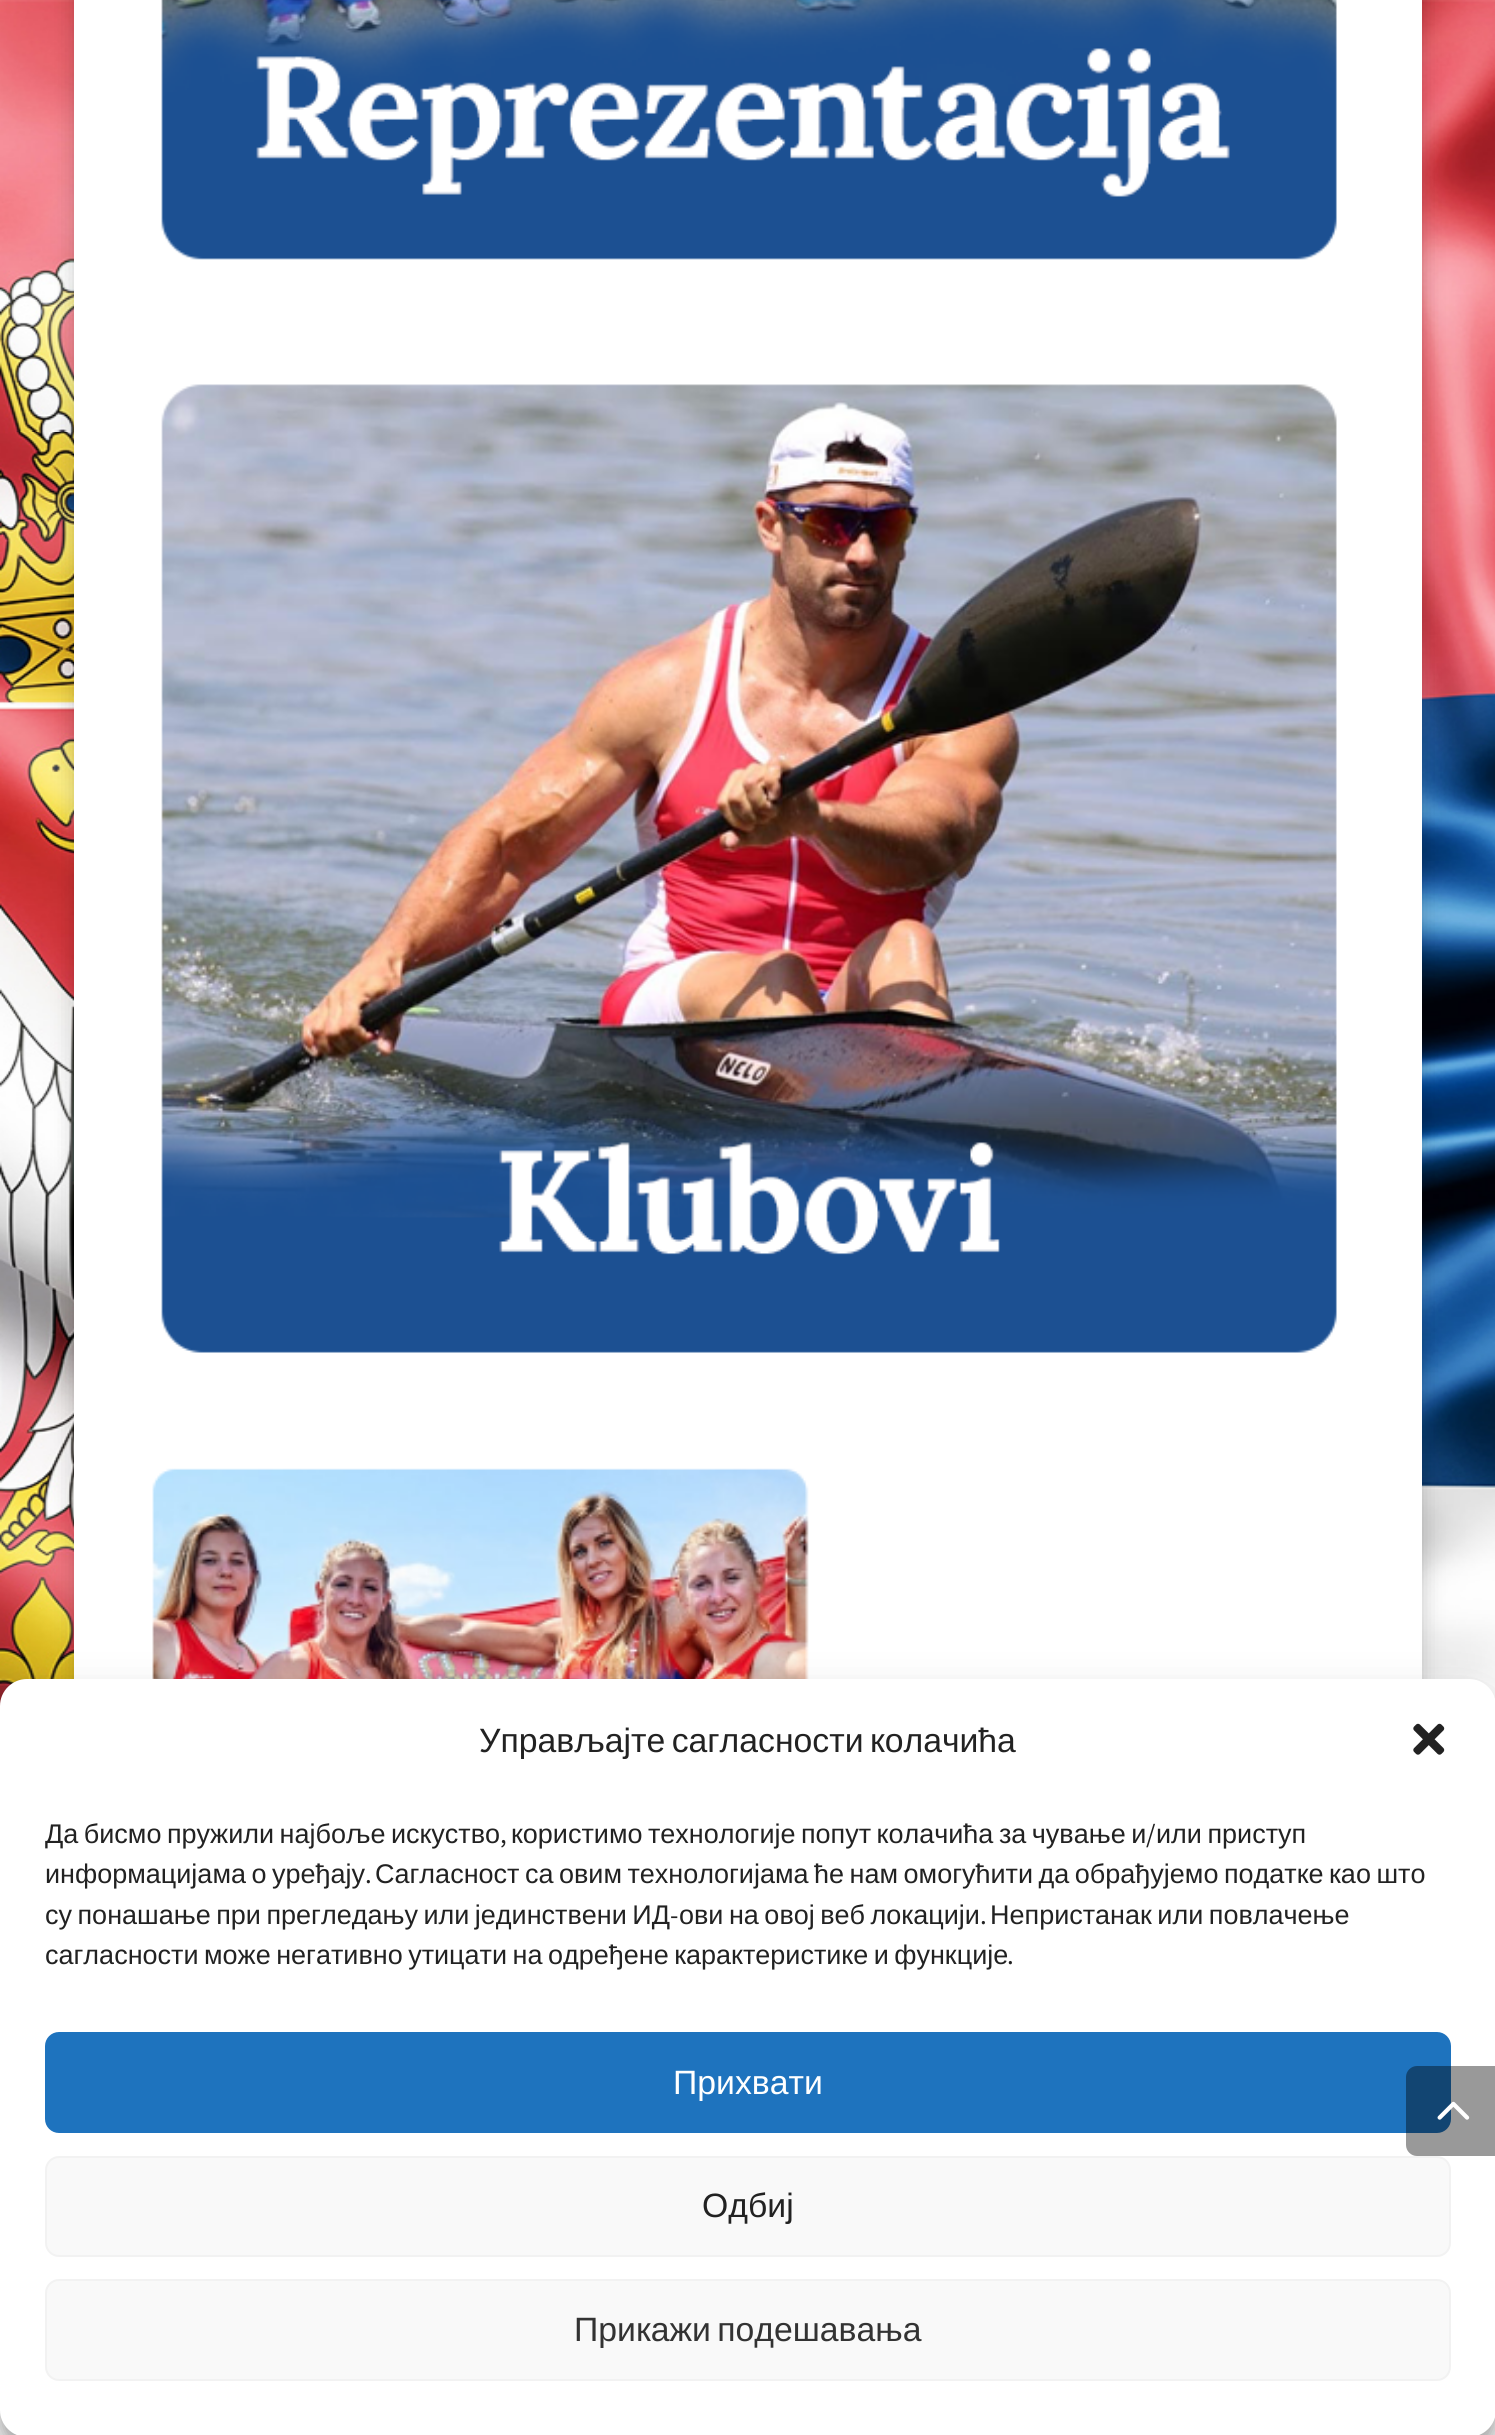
#include <cairo.h>
#include <math.h>
#include <stddef.h>


static void spaced_text(cairo_t *cr, double x, double y, const char *s, double letter, double word) {
    cairo_move_to(cr, x, y);
    while (*s) {
        char ch[5] = {0};
        int n = 0;
        do ch[n++] = *s++; while ((*s & 0xC0) == 0x80);
        cairo_show_text(cr, ch);
        cairo_rel_move_to(cr, letter + word * (*ch == ' '), 0);
    }
}

static void round_rect(cairo_t *cr, double x, double y, double w, double h, double r) {
    cairo_new_sub_path(cr);
    cairo_arc(cr, x + w - r, y + h - r, r, 0, M_PI / 2);
    cairo_arc(cr, x + r, y + h - r, r, M_PI / 2, M_PI);
    cairo_arc(cr, x + r, y + r, r, M_PI, 1.5 * M_PI);
    cairo_arc(cr, x + w - r, y + r, r, 1.5 * M_PI, 2 * M_PI);
    cairo_close_path(cr);
}

static void shadow(cairo_t *cr, double x, double y, double w, double h, double r, double blur, double alpha) {
    cairo_push_group_with_content(cr, CAIRO_CONTENT_ALPHA);
    cairo_set_operator(cr, CAIRO_OPERATOR_SOURCE);
    for (int i = 15; i >= -15 && fmin(w, h) + blur * i / 3 > 0; i -= 2) {
        double e = blur * i / 6;
        cairo_set_source_rgba(cr, 0, 0, 0, alpha * erfc((i - 1) / 8.5) / 2);
        round_rect(cr, x - e, y - e, w + 2 * e, h + 2 * e, fmax(0, fmin(r + e + blur * .6, fmin(w, h) / 2 + e)));
        cairo_fill(cr);
    }
    cairo_pattern_t *soft = cairo_pop_group(cr);
    cairo_mask(cr, soft);
    cairo_pattern_destroy(soft);
}

static void picture(cairo_t *cr, const char *path, double x, double y, double w, double h) {
    cairo_surface_t *image = cairo_image_surface_create_from_png(path);
    cairo_save(cr);
    cairo_set_source_surface(cr, image, x, y);
    cairo_rectangle(cr, x, y, w, h);
    cairo_fill(cr);
    cairo_restore(cr);
    cairo_surface_destroy(image);
}

int main(void) {
    cairo_surface_t *surface = cairo_image_surface_create(CAIRO_FORMAT_RGB24, 1495, 2435);
    cairo_t *cr = cairo_create(surface);
    cairo_font_options_t *options = cairo_font_options_create();
    cairo_font_options_set_hint_metrics(options, CAIRO_HINT_METRICS_OFF);
    cairo_font_options_set_hint_style(options, CAIRO_HINT_STYLE_NONE);
    cairo_set_font_options(cr, options);
    cairo_set_miter_limit(cr, 4);
    cairo_set_source_rgb(cr, 1, 1, 1);
    cairo_paint(cr);
    picture(cr, "img1.png", 0, 0, 1495, 1706);
    cairo_set_source_rgb(cr, 0, 0, 0);
    shadow(cr, 74, -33, 1348, 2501, 0, 11, 0.2);
    cairo_set_source_rgb(cr, 1, 1, 1);
    cairo_rectangle(cr, 74, 0, 1348, 1679);
    cairo_fill(cr);
    picture(cr, "img2.png", 161, 0, 1176, 260);
    picture(cr, "img3.png", 161, 384, 1176, 969);
    picture(cr, "img4.png", 152, 1468, 657, 211);
    cairo_set_source_rgb(cr, 0, 0, 0);
    shadow(cr, 0, 1692, 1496, 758, 27, 7, 0.23);
    shadow(cr, 0, 1701, 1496, 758, 27, 22.5, 0.19);
    cairo_set_source_rgb(cr, 1, 1, 1);
    round_rect(cr, 0, 1679, 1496, 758, 27);
    cairo_fill(cr);
    cairo_set_source_rgb(cr, 0.118, 0.451, 0.745);
    round_rect(cr, 46, 2033, 1404, 99, 13);
    cairo_fill_preserve(cr);
    cairo_stroke(cr);
    cairo_set_source_rgba(cr, 0, 0, 0, 0.4);
    cairo_new_path(cr);
    cairo_move_to(cr, 1417, 2066);
    cairo_line_to(cr, 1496, 2066);
    cairo_line_to(cr, 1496, 2156);
    cairo_line_to(cr, 1417, 2156);
    cairo_curve_to(cr, 1411, 2156, 1406, 2151, 1406, 2145);
    cairo_line_to(cr, 1406, 2077);
    cairo_curve_to(cr, 1406, 2071, 1411, 2066, 1417, 2066);
    cairo_close_path(cr);
    cairo_fill(cr);
    picture(cr, "img5.png", 1437, 2101, 33, 19);
    cairo_select_font_face(cr, "Liberation Sans", CAIRO_FONT_SLANT_NORMAL, CAIRO_FONT_WEIGHT_NORMAL);
    cairo_set_font_size(cr, 33.75);
    cairo_set_source_rgb(cr, 0.133, 0.133, 0.133);
    spaced_text(cr, 479, 1752, "Управљајте сагласности колачића", 0, -3);
    picture(cr, "img6.png", 1413, 1723, 32, 32);
    cairo_set_font_size(cr, 27);
    spaced_text(cr, 45, 1843, "Да бисмо пружили најбоље искуство", 0, -2);
    cairo_select_font_face(cr, "Source Sans Pro", CAIRO_FONT_SLANT_NORMAL, CAIRO_FONT_WEIGHT_NORMAL);
    cairo_move_to(cr, 500, 1843);
    cairo_show_text(cr, ",");
    cairo_select_font_face(cr, "Liberation Sans", CAIRO_FONT_SLANT_NORMAL, CAIRO_FONT_WEIGHT_NORMAL);
    spaced_text(cr, 511, 1843, "користимо технологије попут колачића за чување и", 0, -2);
    cairo_select_font_face(cr, "Source Sans Pro", CAIRO_FONT_SLANT_NORMAL, CAIRO_FONT_WEIGHT_NORMAL);
    cairo_move_to(cr, 1146, 1843);
    cairo_show_text(cr, "/");
    cairo_select_font_face(cr, "Liberation Sans", CAIRO_FONT_SLANT_NORMAL, CAIRO_FONT_WEIGHT_NORMAL);
    spaced_text(cr, 1156, 1843, "или приступ", 0, -2);
    spaced_text(cr, 45, 1883, "информацијама о уређају", 0, -2);
    cairo_select_font_face(cr, "Source Sans Pro", CAIRO_FONT_SLANT_NORMAL, CAIRO_FONT_WEIGHT_NORMAL);
    cairo_move_to(cr, 365, 1883);
    cairo_show_text(cr, ".");
    cairo_select_font_face(cr, "Liberation Sans", CAIRO_FONT_SLANT_NORMAL, CAIRO_FONT_WEIGHT_NORMAL);
    spaced_text(cr, 375, 1883, "Сагласност са овим технологијама ће нам омогућити да обрађујемо податке као што", 0, -2);
    spaced_text(cr, 45, 1924, "су понашање при прегледању или јединствени ИД", 0, -2);
    cairo_select_font_face(cr, "Source Sans Pro", CAIRO_FONT_SLANT_NORMAL, CAIRO_FONT_WEIGHT_NORMAL);
    cairo_move_to(cr, 670, 1924);
    cairo_show_text(cr, "-");
    cairo_select_font_face(cr, "Liberation Sans", CAIRO_FONT_SLANT_NORMAL, CAIRO_FONT_WEIGHT_NORMAL);
    spaced_text(cr, 679, 1924, "ови на овој веб локацији", 0, -2);
    spaced_text(cr, 990, 1924, "Непристанак или повлачење", 0, -2);
    cairo_select_font_face(cr, "Source Sans Pro", CAIRO_FONT_SLANT_NORMAL, CAIRO_FONT_WEIGHT_NORMAL);
    cairo_move_to(cr, 980, 1924);
    cairo_show_text(cr, ".");
    cairo_select_font_face(cr, "Liberation Sans", CAIRO_FONT_SLANT_NORMAL, CAIRO_FONT_WEIGHT_NORMAL);
    spaced_text(cr, 45, 1964, "сагласности може негативно утицати на одређене карактеристике и функције", 0, -2);
    cairo_select_font_face(cr, "Source Sans Pro", CAIRO_FONT_SLANT_NORMAL, CAIRO_FONT_WEIGHT_NORMAL);
    cairo_move_to(cr, 1007, 1964);
    cairo_show_text(cr, ".");
    cairo_select_font_face(cr, "Liberation Sans", CAIRO_FONT_SLANT_NORMAL, CAIRO_FONT_WEIGHT_NORMAL);
    cairo_set_font_size(cr, 33.75);
    cairo_set_source_rgb(cr, 1, 1, 1);
    cairo_move_to(cr, 673, 2094);
    cairo_show_text(cr, "Прихвати");
    cairo_set_source_rgb(cr, 0.976, 0.976, 0.976);
    round_rect(cr, 46, 2157, 1404, 99, 13);
    cairo_fill_preserve(cr);
    cairo_set_source_rgb(cr, 0.949, 0.949, 0.949);
    cairo_stroke(cr);
    cairo_set_source_rgb(cr, 0.133, 0.133, 0.133);
    cairo_move_to(cr, 702, 2217);
    cairo_show_text(cr, "Одбиј");
    cairo_set_source_rgb(cr, 0.976, 0.976, 0.976);
    round_rect(cr, 46, 2280, 1404, 100, 13);
    cairo_fill_preserve(cr);
    cairo_set_source_rgb(cr, 0.949, 0.949, 0.949);
    cairo_stroke(cr);
    cairo_set_source_rgb(cr, 0.2, 0.2, 0.2);
    spaced_text(cr, 574, 2341, "Прикажи подешавања", 0, -3);
    cairo_surface_write_to_png(surface, "page.png");
    cairo_font_options_destroy(options);
    cairo_destroy(cr);
    cairo_surface_destroy(surface);
    return 0;
}
